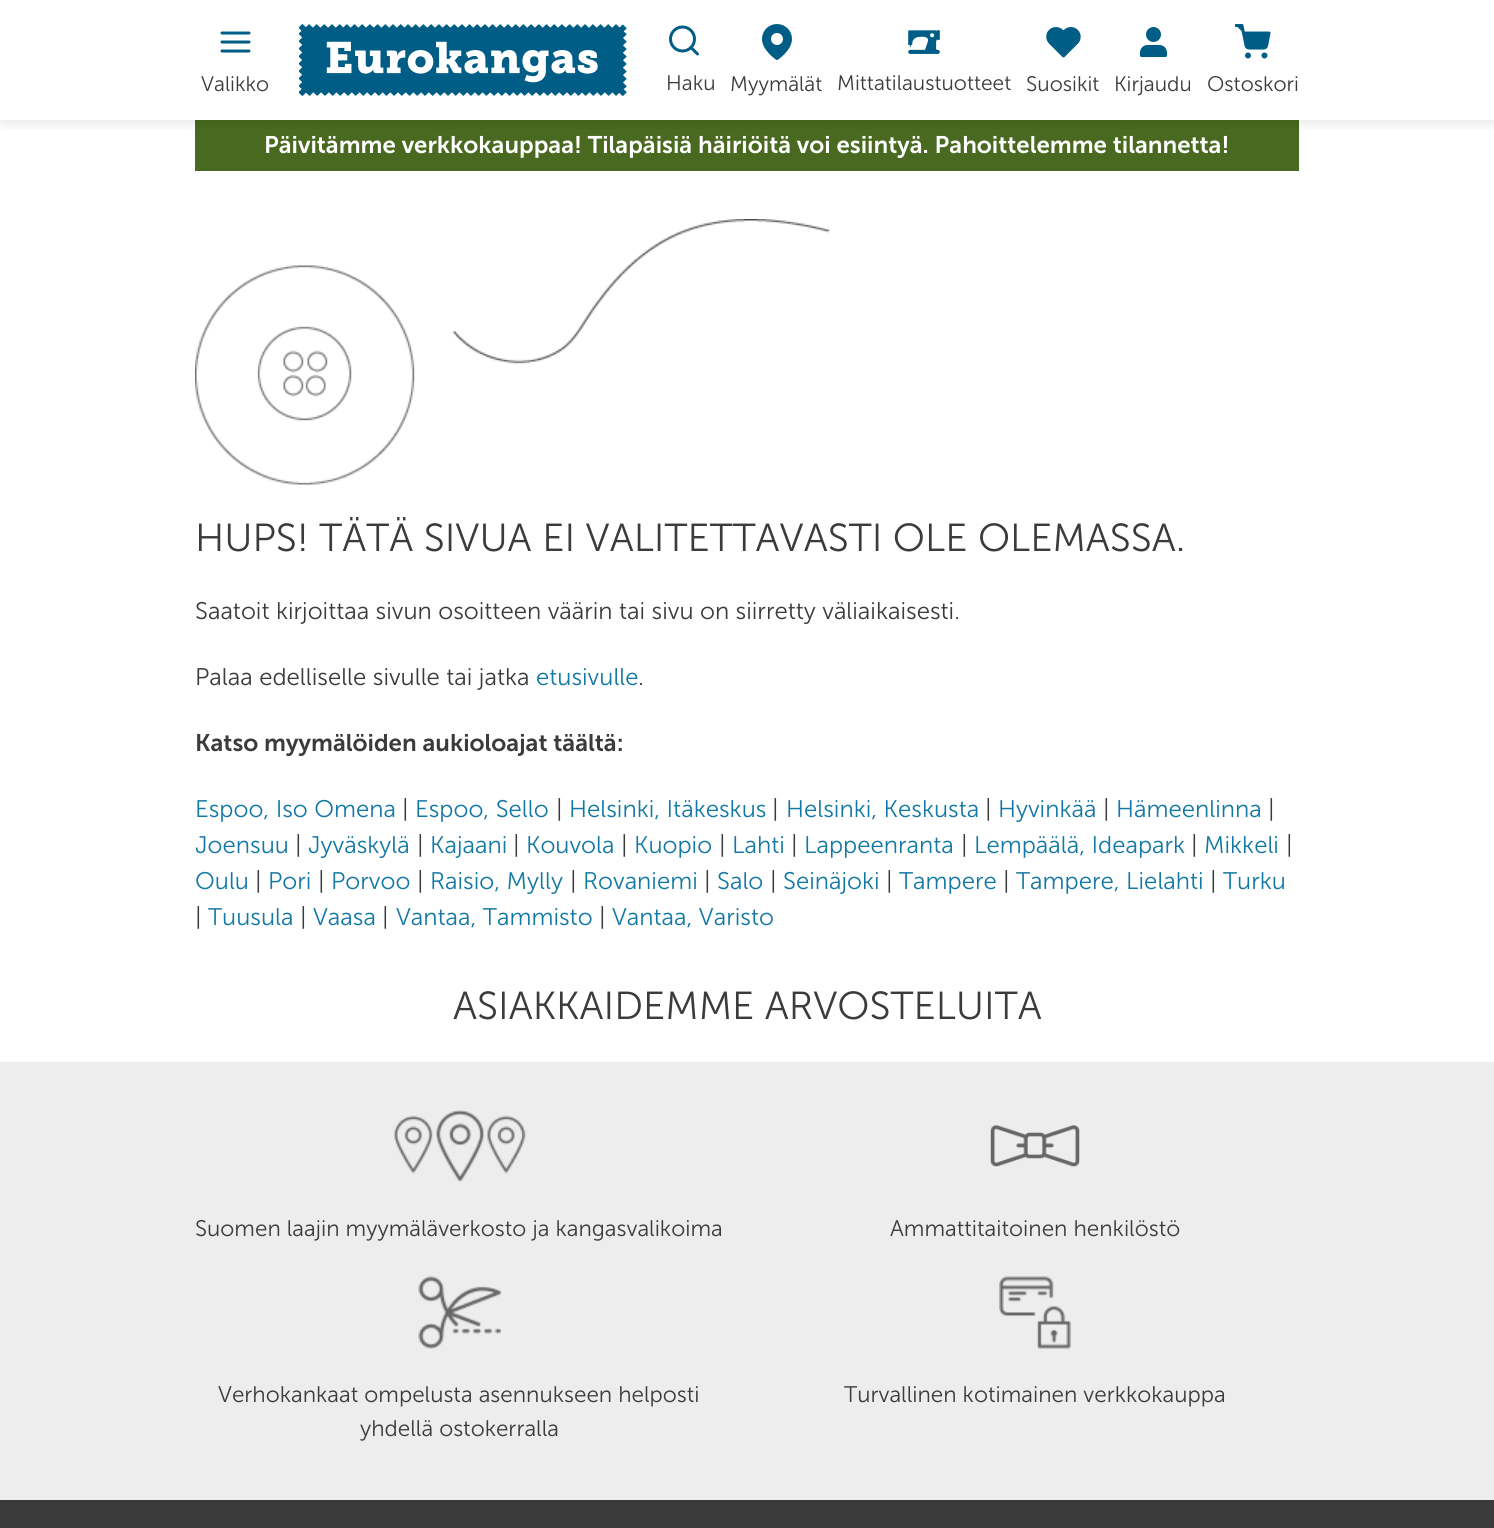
#include <cairo.h>
#include <math.h>
#include <stddef.h>


static void round_rect(cairo_t *cr, double x, double y, double w, double h, double r) {
    cairo_new_sub_path(cr);
    cairo_arc(cr, x + w - r, y + h - r, r, 0, M_PI / 2);
    cairo_arc(cr, x + r, y + h - r, r, M_PI / 2, M_PI);
    cairo_arc(cr, x + r, y + r, r, M_PI, 1.5 * M_PI);
    cairo_arc(cr, x + w - r, y + r, r, 1.5 * M_PI, 2 * M_PI);
    cairo_close_path(cr);
}

static void shadow(cairo_t *cr, double x, double y, double w, double h, double r, double blur, double alpha) {
    cairo_push_group_with_content(cr, CAIRO_CONTENT_ALPHA);
    cairo_set_operator(cr, CAIRO_OPERATOR_SOURCE);
    for (int i = 15; i >= -15 && fmin(w, h) + blur * i / 3 > 0; i -= 2) {
        double e = blur * i / 6;
        cairo_set_source_rgba(cr, 0, 0, 0, alpha * erfc((i - 1) / 8.5) / 2);
        round_rect(cr, x - e, y - e, w + 2 * e, h + 2 * e, fmax(0, fmin(r + e + blur * .6, fmin(w, h) / 2 + e)));
        cairo_fill(cr);
    }
    cairo_pattern_t *soft = cairo_pop_group(cr);
    cairo_mask(cr, soft);
    cairo_pattern_destroy(soft);
}

static void picture(cairo_t *cr, const char *path, double x, double y, double w, double h) {
    cairo_surface_t *image = cairo_image_surface_create_from_png(path);
    cairo_save(cr);
    cairo_set_source_surface(cr, image, x, y);
    cairo_rectangle(cr, x, y, w, h);
    cairo_fill(cr);
    cairo_restore(cr);
    cairo_surface_destroy(image);
}

int main(void) {
    cairo_surface_t *surface = cairo_image_surface_create(CAIRO_FORMAT_RGB24, 1494, 1528);
    cairo_t *cr = cairo_create(surface);
    cairo_font_options_t *options = cairo_font_options_create();
    cairo_font_options_set_hint_metrics(options, CAIRO_HINT_METRICS_OFF);
    cairo_font_options_set_hint_style(options, CAIRO_HINT_STYLE_NONE);
    cairo_set_font_options(cr, options);
    cairo_set_miter_limit(cr, 4);
    cairo_set_source_rgb(cr, 1, 1, 1);
    cairo_paint(cr);
    cairo_set_source_rgb(cr, 0.282, 0.412, 0.122);
    cairo_rectangle(cr, 195, 120, 1104, 51);
    cairo_fill(cr);
    cairo_save(cr);
    cairo_rectangle(cr, 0, 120, 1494, 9);
    cairo_clip(cr);
    cairo_set_source_rgb(cr, 0, 0, 0);
    shadow(cr, 0, 2, 1494, 120, 0, 7.5, 0.11);
    cairo_restore(cr);
    cairo_new_path(cr);
    cairo_move_to(cr, 222, 42);
    cairo_line_to(cr, 249, 42);
    cairo_move_to(cr, 222, 33);
    cairo_line_to(cr, 249, 33);
    cairo_move_to(cr, 222, 51);
    cairo_line_to(cr, 249, 51);
    cairo_set_source_rgb(cr, 0, 0.365, 0.525);
    cairo_set_line_width(cr, 3);
    cairo_set_line_cap(cr, CAIRO_LINE_CAP_ROUND);
    cairo_set_line_join(cr, CAIRO_LINE_JOIN_ROUND);
    cairo_stroke(cr);
    cairo_select_font_face(cr, "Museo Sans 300 Light", CAIRO_FONT_SLANT_NORMAL, CAIRO_FONT_WEIGHT_NORMAL);
    cairo_set_font_size(cr, 21);
    cairo_set_source_rgb(cr, 0.231, 0.231, 0.231);
    cairo_move_to(cr, 201, 91);
    cairo_show_text(cr, "Valikko");
    picture(cr, "img1.png", 299, 24, 328, 72);
    cairo_arc(cr, 682.5, 39, 12, 0, 2 * M_PI);
    cairo_set_source_rgb(cr, 0, 0.365, 0.525);
    cairo_set_line_cap(cr, CAIRO_LINE_CAP_BUTT);
    cairo_set_line_join(cr, CAIRO_LINE_JOIN_MITER);
    cairo_stroke(cr);
    cairo_new_path(cr);
    cairo_move_to(cr, 697.5, 54);
    cairo_line_to(cr, 691, 47.5);
    cairo_set_line_cap(cr, CAIRO_LINE_CAP_ROUND);
    cairo_set_line_join(cr, CAIRO_LINE_JOIN_ROUND);
    cairo_stroke(cr);
    cairo_set_source_rgb(cr, 0.231, 0.231, 0.231);
    cairo_move_to(cr, 666, 90);
    cairo_show_text(cr, "Haku");
    picture(cr, "img2.png", 762, 24, 30, 36);
    cairo_move_to(cr, 730, 91);
    cairo_show_text(cr, "Myymälät");
    picture(cr, "img3.png", 908, 30, 32, 24);
    cairo_move_to(cr, 837, 90);
    cairo_show_text(cr, "Mittatilaustuotteet");
    picture(cr, "img4.png", 1046, 27, 35, 31);
    cairo_move_to(cr, 1026, 91);
    cairo_show_text(cr, "Suosikit");
    picture(cr, "img5.png", 1140, 27, 27, 30);
    cairo_move_to(cr, 1114, 91);
    cairo_show_text(cr, "Kirjaudu");
    picture(cr, "img6.png", 1235, 24, 36, 35);
    cairo_move_to(cr, 1207, 91);
    cairo_show_text(cr, "Ostoskori");
    cairo_select_font_face(cr, "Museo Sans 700 SemiBold", CAIRO_FONT_SLANT_NORMAL, CAIRO_FONT_WEIGHT_NORMAL);
    cairo_set_font_size(cr, 24);
    cairo_set_source_rgb(cr, 1, 1, 1);
    cairo_move_to(cr, 264, 153);
    cairo_show_text(cr, "Päivitämme verkkokauppaa! Tilapäisiä häiriöitä voi esiintyä. Pahoittelemme tilannetta!");
    picture(cr, "img7.png", 195, 219, 635, 266);
    cairo_select_font_face(cr, "Museo Sans 300 Light", CAIRO_FONT_SLANT_NORMAL, CAIRO_FONT_WEIGHT_NORMAL);
    cairo_set_font_size(cr, 39);
    cairo_set_source_rgb(cr, 0.231, 0.231, 0.231);
    cairo_move_to(cr, 195, 551);
    cairo_show_text(cr, "HUPS! TÄTÄ SIVUA EI VALITETTAVASTI OLE OLEMASSA.");
    cairo_set_font_size(cr, 24);
    cairo_move_to(cr, 195, 619);
    cairo_show_text(cr, "Saatoit kirjoittaa sivun osoitteen väärin tai sivu on siirretty väliaikaisesti.");
    cairo_move_to(cr, 195, 685);
    cairo_show_text(cr, "Palaa edelliselle sivulle tai jatka");
    cairo_set_source_rgb(cr, 0.075, 0.471, 0.643);
    cairo_move_to(cr, 536, 685);
    cairo_show_text(cr, "etusivulle");
    cairo_set_source_rgb(cr, 0.231, 0.231, 0.231);
    cairo_move_to(cr, 638, 685);
    cairo_show_text(cr, ".");
    cairo_select_font_face(cr, "Museo Sans 700 SemiBold", CAIRO_FONT_SLANT_NORMAL, CAIRO_FONT_WEIGHT_NORMAL);
    cairo_move_to(cr, 195, 751);
    cairo_show_text(cr, "Katso myymälöiden aukioloajat täältä:");
    cairo_select_font_face(cr, "Museo Sans 300 Light", CAIRO_FONT_SLANT_NORMAL, CAIRO_FONT_WEIGHT_NORMAL);
    cairo_set_source_rgb(cr, 0.075, 0.471, 0.643);
    cairo_move_to(cr, 195, 817);
    cairo_show_text(cr, "Espoo, Iso Omena");
    cairo_set_source_rgb(cr, 0.231, 0.231, 0.231);
    cairo_move_to(cr, 402, 817);
    cairo_show_text(cr, "|");
    cairo_set_source_rgb(cr, 0.075, 0.471, 0.643);
    cairo_move_to(cr, 415, 817);
    cairo_show_text(cr, "Espoo, Sello");
    cairo_set_source_rgb(cr, 0.231, 0.231, 0.231);
    cairo_move_to(cr, 556, 817);
    cairo_show_text(cr, "|");
    cairo_set_source_rgb(cr, 0.075, 0.471, 0.643);
    cairo_move_to(cr, 569, 817);
    cairo_show_text(cr, "Helsinki, Itäkeskus");
    cairo_set_source_rgb(cr, 0.231, 0.231, 0.231);
    cairo_move_to(cr, 772, 817);
    cairo_show_text(cr, "|");
    cairo_set_source_rgb(cr, 0.075, 0.471, 0.643);
    cairo_move_to(cr, 786, 817);
    cairo_show_text(cr, "Helsinki, Keskusta");
    cairo_set_source_rgb(cr, 0.231, 0.231, 0.231);
    cairo_move_to(cr, 985, 817);
    cairo_show_text(cr, "|");
    cairo_set_source_rgb(cr, 0.075, 0.471, 0.643);
    cairo_move_to(cr, 998, 817);
    cairo_show_text(cr, "Hyvinkää");
    cairo_set_source_rgb(cr, 0.231, 0.231, 0.231);
    cairo_move_to(cr, 1103, 817);
    cairo_show_text(cr, "|");
    cairo_set_source_rgb(cr, 0.075, 0.471, 0.643);
    cairo_move_to(cr, 1116, 817);
    cairo_show_text(cr, "Hämeenlinna");
    cairo_set_source_rgb(cr, 0.231, 0.231, 0.231);
    cairo_move_to(cr, 1268, 817);
    cairo_show_text(cr, "|");
    cairo_set_source_rgb(cr, 0.075, 0.471, 0.643);
    cairo_move_to(cr, 195, 853);
    cairo_show_text(cr, "Joensuu");
    cairo_set_source_rgb(cr, 0.231, 0.231, 0.231);
    cairo_move_to(cr, 295, 853);
    cairo_show_text(cr, "|");
    cairo_set_source_rgb(cr, 0.075, 0.471, 0.643);
    cairo_move_to(cr, 308, 853);
    cairo_show_text(cr, "Jyväskylä");
    cairo_set_source_rgb(cr, 0.231, 0.231, 0.231);
    cairo_move_to(cr, 417, 853);
    cairo_show_text(cr, "|");
    cairo_set_source_rgb(cr, 0.075, 0.471, 0.643);
    cairo_move_to(cr, 430, 853);
    cairo_show_text(cr, "Kajaani");
    cairo_set_source_rgb(cr, 0.231, 0.231, 0.231);
    cairo_move_to(cr, 513, 853);
    cairo_show_text(cr, "|");
    cairo_set_source_rgb(cr, 0.075, 0.471, 0.643);
    cairo_move_to(cr, 526, 853);
    cairo_show_text(cr, "Kouvola");
    cairo_set_source_rgb(cr, 0.231, 0.231, 0.231);
    cairo_move_to(cr, 621, 853);
    cairo_show_text(cr, "|");
    cairo_set_source_rgb(cr, 0.075, 0.471, 0.643);
    cairo_move_to(cr, 634, 853);
    cairo_show_text(cr, "Kuopio");
    cairo_set_source_rgb(cr, 0.231, 0.231, 0.231);
    cairo_move_to(cr, 719, 853);
    cairo_show_text(cr, "|");
    cairo_set_source_rgb(cr, 0.075, 0.471, 0.643);
    cairo_move_to(cr, 732, 853);
    cairo_show_text(cr, "Lahti");
    cairo_set_source_rgb(cr, 0.231, 0.231, 0.231);
    cairo_move_to(cr, 791, 853);
    cairo_show_text(cr, "|");
    cairo_set_source_rgb(cr, 0.075, 0.471, 0.643);
    cairo_move_to(cr, 804, 853);
    cairo_show_text(cr, "Lappeenranta");
    cairo_set_source_rgb(cr, 0.231, 0.231, 0.231);
    cairo_move_to(cr, 961, 853);
    cairo_show_text(cr, "|");
    cairo_set_source_rgb(cr, 0.075, 0.471, 0.643);
    cairo_move_to(cr, 974, 853);
    cairo_show_text(cr, "Lempäälä, Ideapark");
    cairo_set_source_rgb(cr, 0.231, 0.231, 0.231);
    cairo_move_to(cr, 1191, 853);
    cairo_show_text(cr, "|");
    cairo_set_source_rgb(cr, 0.075, 0.471, 0.643);
    cairo_move_to(cr, 1204, 853);
    cairo_show_text(cr, "Mikkeli");
    cairo_set_source_rgb(cr, 0.231, 0.231, 0.231);
    cairo_move_to(cr, 1286, 853);
    cairo_show_text(cr, "|");
    cairo_set_source_rgb(cr, 0.075, 0.471, 0.643);
    cairo_move_to(cr, 195, 889);
    cairo_show_text(cr, "Oulu");
    cairo_set_source_rgb(cr, 0.231, 0.231, 0.231);
    cairo_move_to(cr, 255, 889);
    cairo_show_text(cr, "|");
    cairo_set_source_rgb(cr, 0.075, 0.471, 0.643);
    cairo_move_to(cr, 268, 889);
    cairo_show_text(cr, "Pori");
    cairo_set_source_rgb(cr, 0.231, 0.231, 0.231);
    cairo_move_to(cr, 318, 889);
    cairo_show_text(cr, "|");
    cairo_set_source_rgb(cr, 0.075, 0.471, 0.643);
    cairo_move_to(cr, 331, 889);
    cairo_show_text(cr, "Porvoo");
    cairo_set_source_rgb(cr, 0.231, 0.231, 0.231);
    cairo_move_to(cr, 417, 889);
    cairo_show_text(cr, "|");
    cairo_set_source_rgb(cr, 0.075, 0.471, 0.643);
    cairo_move_to(cr, 430, 889);
    cairo_show_text(cr, "Raisio, Mylly");
    cairo_set_source_rgb(cr, 0.231, 0.231, 0.231);
    cairo_move_to(cr, 570, 889);
    cairo_show_text(cr, "|");
    cairo_set_source_rgb(cr, 0.075, 0.471, 0.643);
    cairo_move_to(cr, 583, 889);
    cairo_show_text(cr, "Rovaniemi");
    cairo_set_source_rgb(cr, 0.231, 0.231, 0.231);
    cairo_move_to(cr, 704, 889);
    cairo_show_text(cr, "|");
    cairo_set_source_rgb(cr, 0.075, 0.471, 0.643);
    cairo_move_to(cr, 717, 889);
    cairo_show_text(cr, "Salo");
    cairo_set_source_rgb(cr, 0.231, 0.231, 0.231);
    cairo_move_to(cr, 770, 889);
    cairo_show_text(cr, "|");
    cairo_set_source_rgb(cr, 0.075, 0.471, 0.643);
    cairo_move_to(cr, 783, 889);
    cairo_show_text(cr, "Seinäjoki");
    cairo_set_source_rgb(cr, 0.231, 0.231, 0.231);
    cairo_move_to(cr, 886, 889);
    cairo_show_text(cr, "|");
    cairo_set_source_rgb(cr, 0.075, 0.471, 0.643);
    cairo_move_to(cr, 899, 889);
    cairo_show_text(cr, "Tampere");
    cairo_set_source_rgb(cr, 0.231, 0.231, 0.231);
    cairo_move_to(cr, 1003, 889);
    cairo_show_text(cr, "|");
    cairo_set_source_rgb(cr, 0.075, 0.471, 0.643);
    cairo_move_to(cr, 1016, 889);
    cairo_show_text(cr, "Tampere, Lielahti");
    cairo_set_source_rgb(cr, 0.231, 0.231, 0.231);
    cairo_move_to(cr, 1210, 889);
    cairo_show_text(cr, "|");
    cairo_set_source_rgb(cr, 0.075, 0.471, 0.643);
    cairo_move_to(cr, 1223, 889);
    cairo_show_text(cr, "Turku");
    cairo_set_source_rgb(cr, 0.231, 0.231, 0.231);
    cairo_move_to(cr, 195, 925);
    cairo_show_text(cr, "|");
    cairo_set_source_rgb(cr, 0.075, 0.471, 0.643);
    cairo_move_to(cr, 208, 925);
    cairo_show_text(cr, "Tuusula");
    cairo_set_source_rgb(cr, 0.231, 0.231, 0.231);
    cairo_move_to(cr, 300, 925);
    cairo_show_text(cr, "|");
    cairo_set_source_rgb(cr, 0.075, 0.471, 0.643);
    cairo_move_to(cr, 313, 925);
    cairo_show_text(cr, "Vaasa");
    cairo_set_source_rgb(cr, 0.231, 0.231, 0.231);
    cairo_move_to(cr, 382, 925);
    cairo_show_text(cr, "|");
    cairo_set_source_rgb(cr, 0.075, 0.471, 0.643);
    cairo_move_to(cr, 396, 925);
    cairo_show_text(cr, "Vantaa, Tammisto");
    cairo_set_source_rgb(cr, 0.231, 0.231, 0.231);
    cairo_move_to(cr, 599, 925);
    cairo_show_text(cr, "|");
    cairo_set_source_rgb(cr, 0.075, 0.471, 0.643);
    cairo_move_to(cr, 612, 925);
    cairo_show_text(cr, "Vantaa, Varisto");
    cairo_set_font_size(cr, 39);
    cairo_set_source_rgb(cr, 0.231, 0.231, 0.231);
    cairo_move_to(cr, 453, 1019);
    cairo_show_text(cr, "ASIAKKAIDEMME ARVOSTELUITA");
    cairo_set_source_rgb(cr, 0.929, 0.929, 0.929);
    cairo_rectangle(cr, 0, 1062, 1494, 438);
    cairo_fill(cr);
    picture(cr, "img8.png", 394, 1110, 132, 72);
    cairo_set_font_size(cr, 22.5);
    cairo_set_source_rgb(cr, 0.231, 0.231, 0.231);
    cairo_move_to(cr, 195, 1236);
    cairo_show_text(cr, "Suomen laajin myymäläverkosto ja kangasvalikoima");
    picture(cr, "img9.png", 990, 1125, 90, 42);
    cairo_move_to(cr, 890, 1236);
    cairo_show_text(cr, "Ammattitaitoinen henkilöstö");
    picture(cr, "img10.png", 418, 1276, 83, 73);
    cairo_move_to(cr, 218, 1402);
    cairo_show_text(cr, "Verhokankaat ompelusta asennukseen helposti");
    cairo_move_to(cr, 360, 1436);
    cairo_show_text(cr, "yhdellä ostokerralla");
    picture(cr, "img11.png", 999, 1276, 72, 73);
    cairo_move_to(cr, 844, 1402);
    cairo_show_text(cr, "Turvallinen kotimainen verkkokauppa");
    cairo_rectangle(cr, 0, 1500, 1494, 28);
    cairo_fill(cr);
    cairo_surface_write_to_png(surface, "page.png");
    cairo_font_options_destroy(options);
    cairo_destroy(cr);
    cairo_surface_destroy(surface);
    return 0;
}
